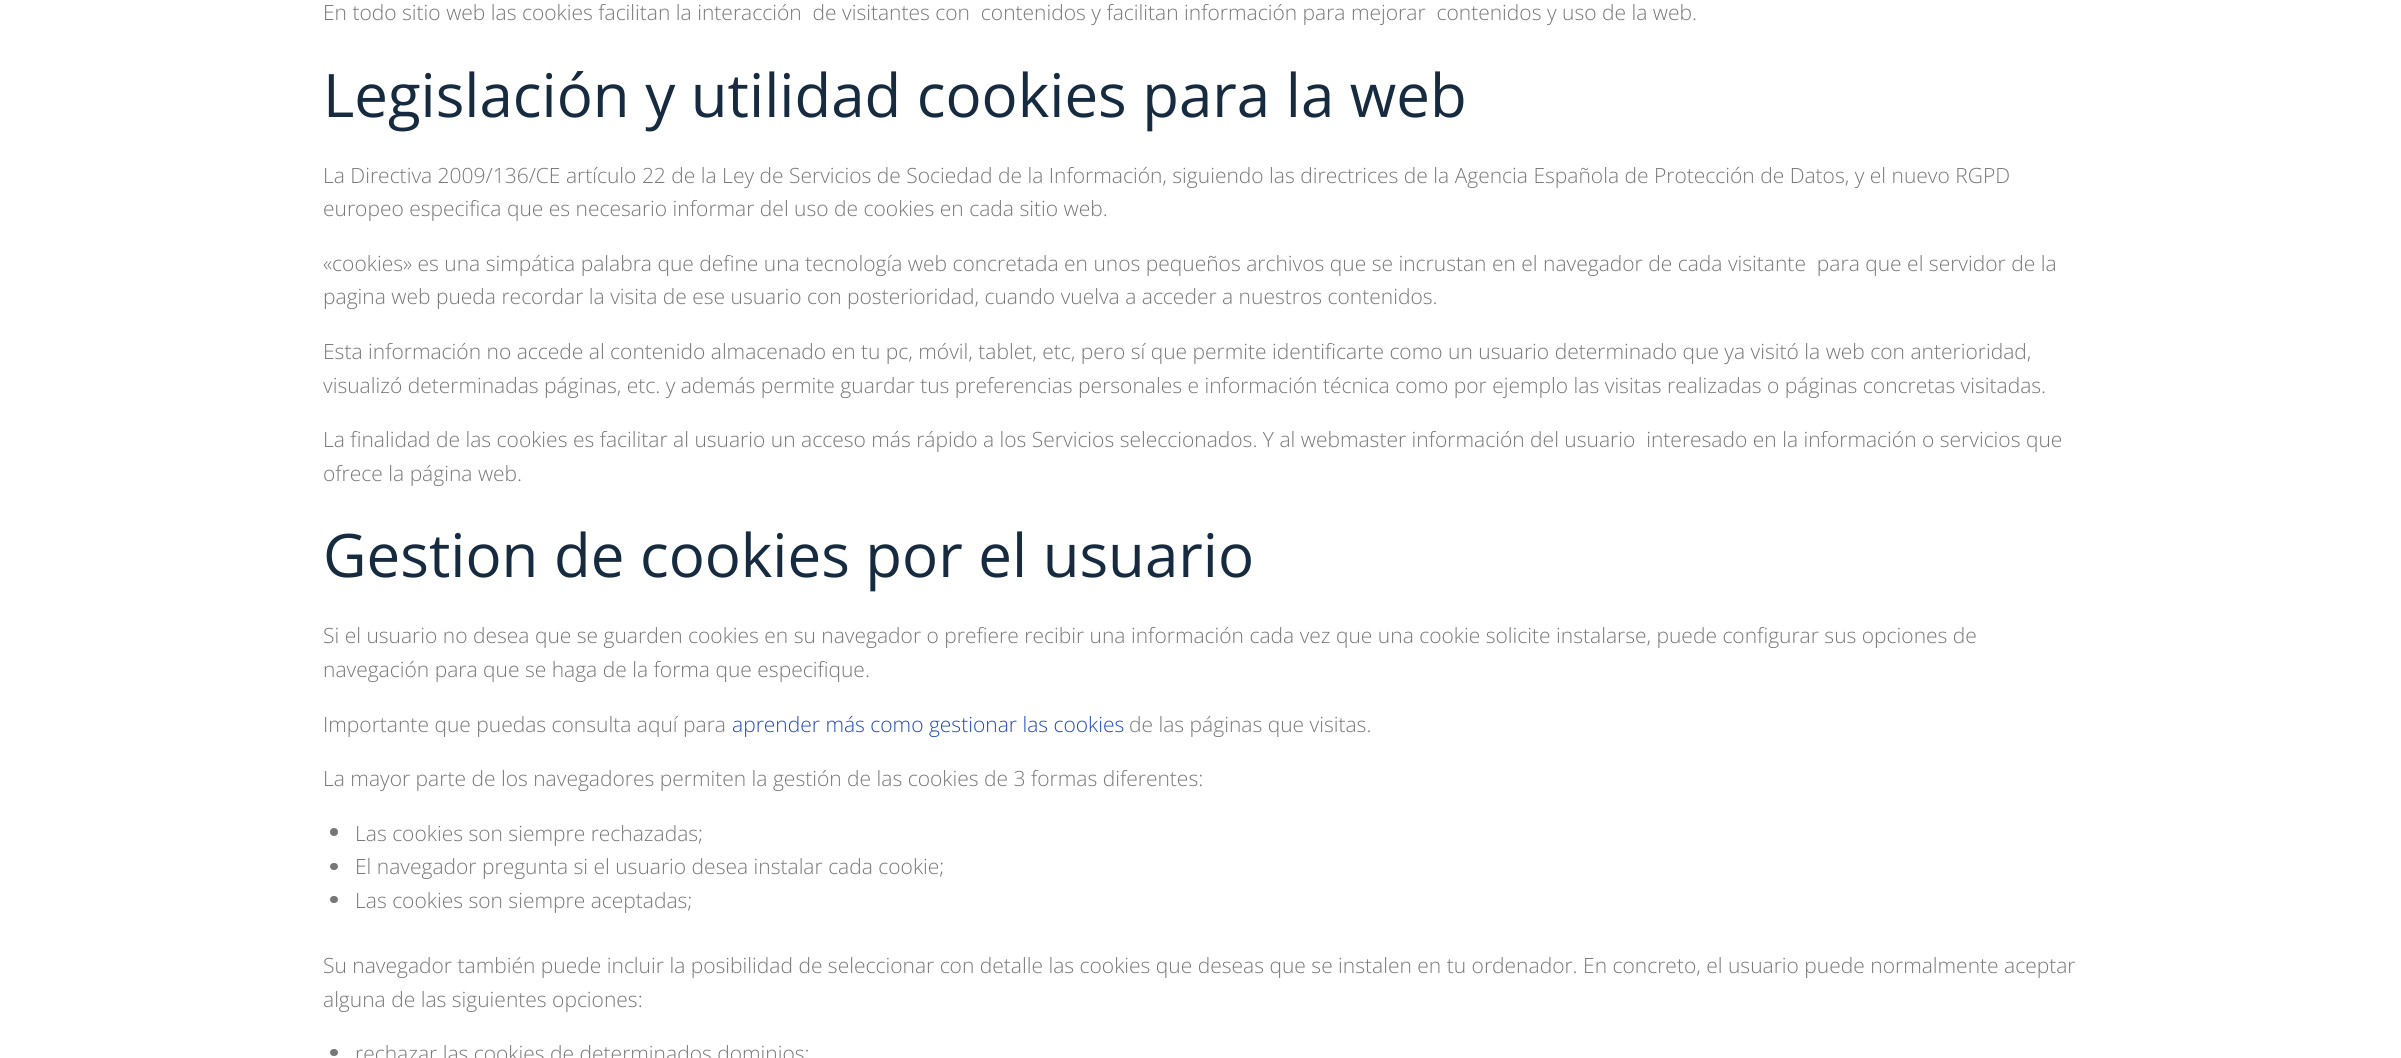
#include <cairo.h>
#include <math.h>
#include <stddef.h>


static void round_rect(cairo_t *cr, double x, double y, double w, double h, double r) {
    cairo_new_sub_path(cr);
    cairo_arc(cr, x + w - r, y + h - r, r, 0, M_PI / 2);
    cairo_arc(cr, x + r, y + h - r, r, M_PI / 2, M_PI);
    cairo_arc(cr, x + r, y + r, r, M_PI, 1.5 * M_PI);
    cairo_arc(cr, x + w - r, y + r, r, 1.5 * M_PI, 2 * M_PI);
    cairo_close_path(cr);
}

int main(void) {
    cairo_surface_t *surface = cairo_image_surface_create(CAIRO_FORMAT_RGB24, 2401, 1058);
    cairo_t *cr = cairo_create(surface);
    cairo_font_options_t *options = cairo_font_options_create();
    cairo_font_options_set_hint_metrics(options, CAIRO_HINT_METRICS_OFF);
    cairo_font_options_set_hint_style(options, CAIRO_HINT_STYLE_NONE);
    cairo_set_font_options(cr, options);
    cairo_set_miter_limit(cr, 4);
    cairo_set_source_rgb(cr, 1, 1, 1);
    cairo_paint(cr);
    cairo_select_font_face(cr, "Open Sans Light", CAIRO_FONT_SLANT_NORMAL, CAIRO_FONT_WEIGHT_NORMAL);
    cairo_set_font_size(cr, 21);
    cairo_set_source_rgb(cr, 0.467, 0.467, 0.467);
    cairo_move_to(cr, 323, 20);
    cairo_show_text(cr, "En todo sitio web las cookies facilitan la interacción  de visitantes con  contenidos y facilitan información para mejorar  contenidos y uso de la web.");
    cairo_select_font_face(cr, "Open Sans", CAIRO_FONT_SLANT_NORMAL, CAIRO_FONT_WEIGHT_NORMAL);
    cairo_set_font_size(cr, 60);
    cairo_set_source_rgb(cr, 0.086, 0.169, 0.251);
    cairo_move_to(cr, 323, 117);
    cairo_show_text(cr, "Legislación y utilidad cookies para la web");
    cairo_select_font_face(cr, "Open Sans Light", CAIRO_FONT_SLANT_NORMAL, CAIRO_FONT_WEIGHT_NORMAL);
    cairo_set_font_size(cr, 21);
    cairo_set_source_rgb(cr, 0.467, 0.467, 0.467);
    cairo_move_to(cr, 323, 183);
    cairo_show_text(cr, "La Directiva 2009/136/CE artículo 22 de la Ley de Servicios de Sociedad de la Información, siguiendo las directrices de la Agencia Española de Protección de Datos, y el nuevo RGPD");
    cairo_move_to(cr, 323, 216);
    cairo_show_text(cr, "europeo especifica que es necesario informar del uso de cookies en cada sitio web.");
    cairo_move_to(cr, 323, 271);
    cairo_show_text(cr, "«cookies» es una simpática palabra que define una tecnología web concretada en unos pequeños archivos que se incrustan en el navegador de cada visitante  para que el servidor de la");
    cairo_move_to(cr, 323, 304);
    cairo_show_text(cr, "pagina web pueda recordar la visita de ese usuario con posterioridad, cuando vuelva a acceder a nuestros contenidos.");
    cairo_move_to(cr, 323, 359);
    cairo_show_text(cr, "Esta información no accede al contenido almacenado en tu pc, móvil, tablet, etc, pero sí que permite identificarte como un usuario determinado que ya visitó la web con anterioridad,");
    cairo_move_to(cr, 323, 393);
    cairo_show_text(cr, "visualizó determinadas páginas, etc. y además permite guardar tus preferencias personales e información técnica como por ejemplo las visitas realizadas o páginas concretas visitadas.");
    cairo_move_to(cr, 323, 447);
    cairo_show_text(cr, "La finalidad de las cookies es facilitar al usuario un acceso más rápido a los Servicios seleccionados. Y al webmaster información del usuario  interesado en la información o servicios que");
    cairo_move_to(cr, 323, 481);
    cairo_show_text(cr, "ofrece la página web.");
    cairo_select_font_face(cr, "Open Sans", CAIRO_FONT_SLANT_NORMAL, CAIRO_FONT_WEIGHT_NORMAL);
    cairo_set_font_size(cr, 60);
    cairo_set_source_rgb(cr, 0.086, 0.169, 0.251);
    cairo_move_to(cr, 323, 577);
    cairo_show_text(cr, "Gestion de cookies por el usuario");
    cairo_select_font_face(cr, "Open Sans Light", CAIRO_FONT_SLANT_NORMAL, CAIRO_FONT_WEIGHT_NORMAL);
    cairo_set_font_size(cr, 21);
    cairo_set_source_rgb(cr, 0.467, 0.467, 0.467);
    cairo_move_to(cr, 323, 643);
    cairo_show_text(cr, "Si el usuario no desea que se guarden cookies en su navegador o prefiere recibir una información cada vez que una cookie solicite instalarse, puede configurar sus opciones de");
    cairo_move_to(cr, 323, 677);
    cairo_show_text(cr, "navegación para que se haga de la forma que especifique.");
    cairo_move_to(cr, 323, 732);
    cairo_show_text(cr, "Importante que puedas consulta aquí para");
    cairo_set_source_rgb(cr, 0.125, 0.294, 0.749);
    cairo_move_to(cr, 732, 732);
    cairo_show_text(cr, "aprender más como gestionar las cookies");
    cairo_set_source_rgb(cr, 0.467, 0.467, 0.467);
    cairo_move_to(cr, 1129, 732);
    cairo_show_text(cr, "de las páginas que visitas.");
    cairo_move_to(cr, 323, 786);
    cairo_show_text(cr, "La mayor parte de los navegadores permiten la gestión de las cookies de 3 formas diferentes:");
    cairo_new_path(cr);
    cairo_arc(cr, 334, 832, 4, 0, 2 * M_PI);
    cairo_fill(cr);
    cairo_move_to(cr, 355, 841);
    cairo_show_text(cr, "Las cookies son siempre rechazadas;");
    round_rect(cr, 330, 863, 8, 7, 3.5);
    cairo_fill(cr);
    cairo_move_to(cr, 355, 874);
    cairo_show_text(cr, "El navegador pregunta si el usuario desea instalar cada cookie;");
    round_rect(cr, 330, 896, 8, 7, 3.5);
    cairo_fill(cr);
    cairo_move_to(cr, 355, 908);
    cairo_show_text(cr, "Las cookies son siempre aceptadas;");
    cairo_move_to(cr, 323, 973);
    cairo_show_text(cr, "Su navegador también puede incluir la posibilidad de seleccionar con detalle las cookies que deseas que se instalen en tu ordenador. En concreto, el usuario puede normalmente aceptar");
    cairo_move_to(cr, 323, 1007);
    cairo_show_text(cr, "alguna de las siguientes opciones:");
    round_rect(cr, 330, 1049, 8, 7, 3.5);
    cairo_fill(cr);
    cairo_move_to(cr, 355, 1061);
    cairo_show_text(cr, "rechazar las cookies de determinados dominios;");
    cairo_surface_write_to_png(surface, "page.png");
    cairo_font_options_destroy(options);
    cairo_destroy(cr);
    cairo_surface_destroy(surface);
    return 0;
}
